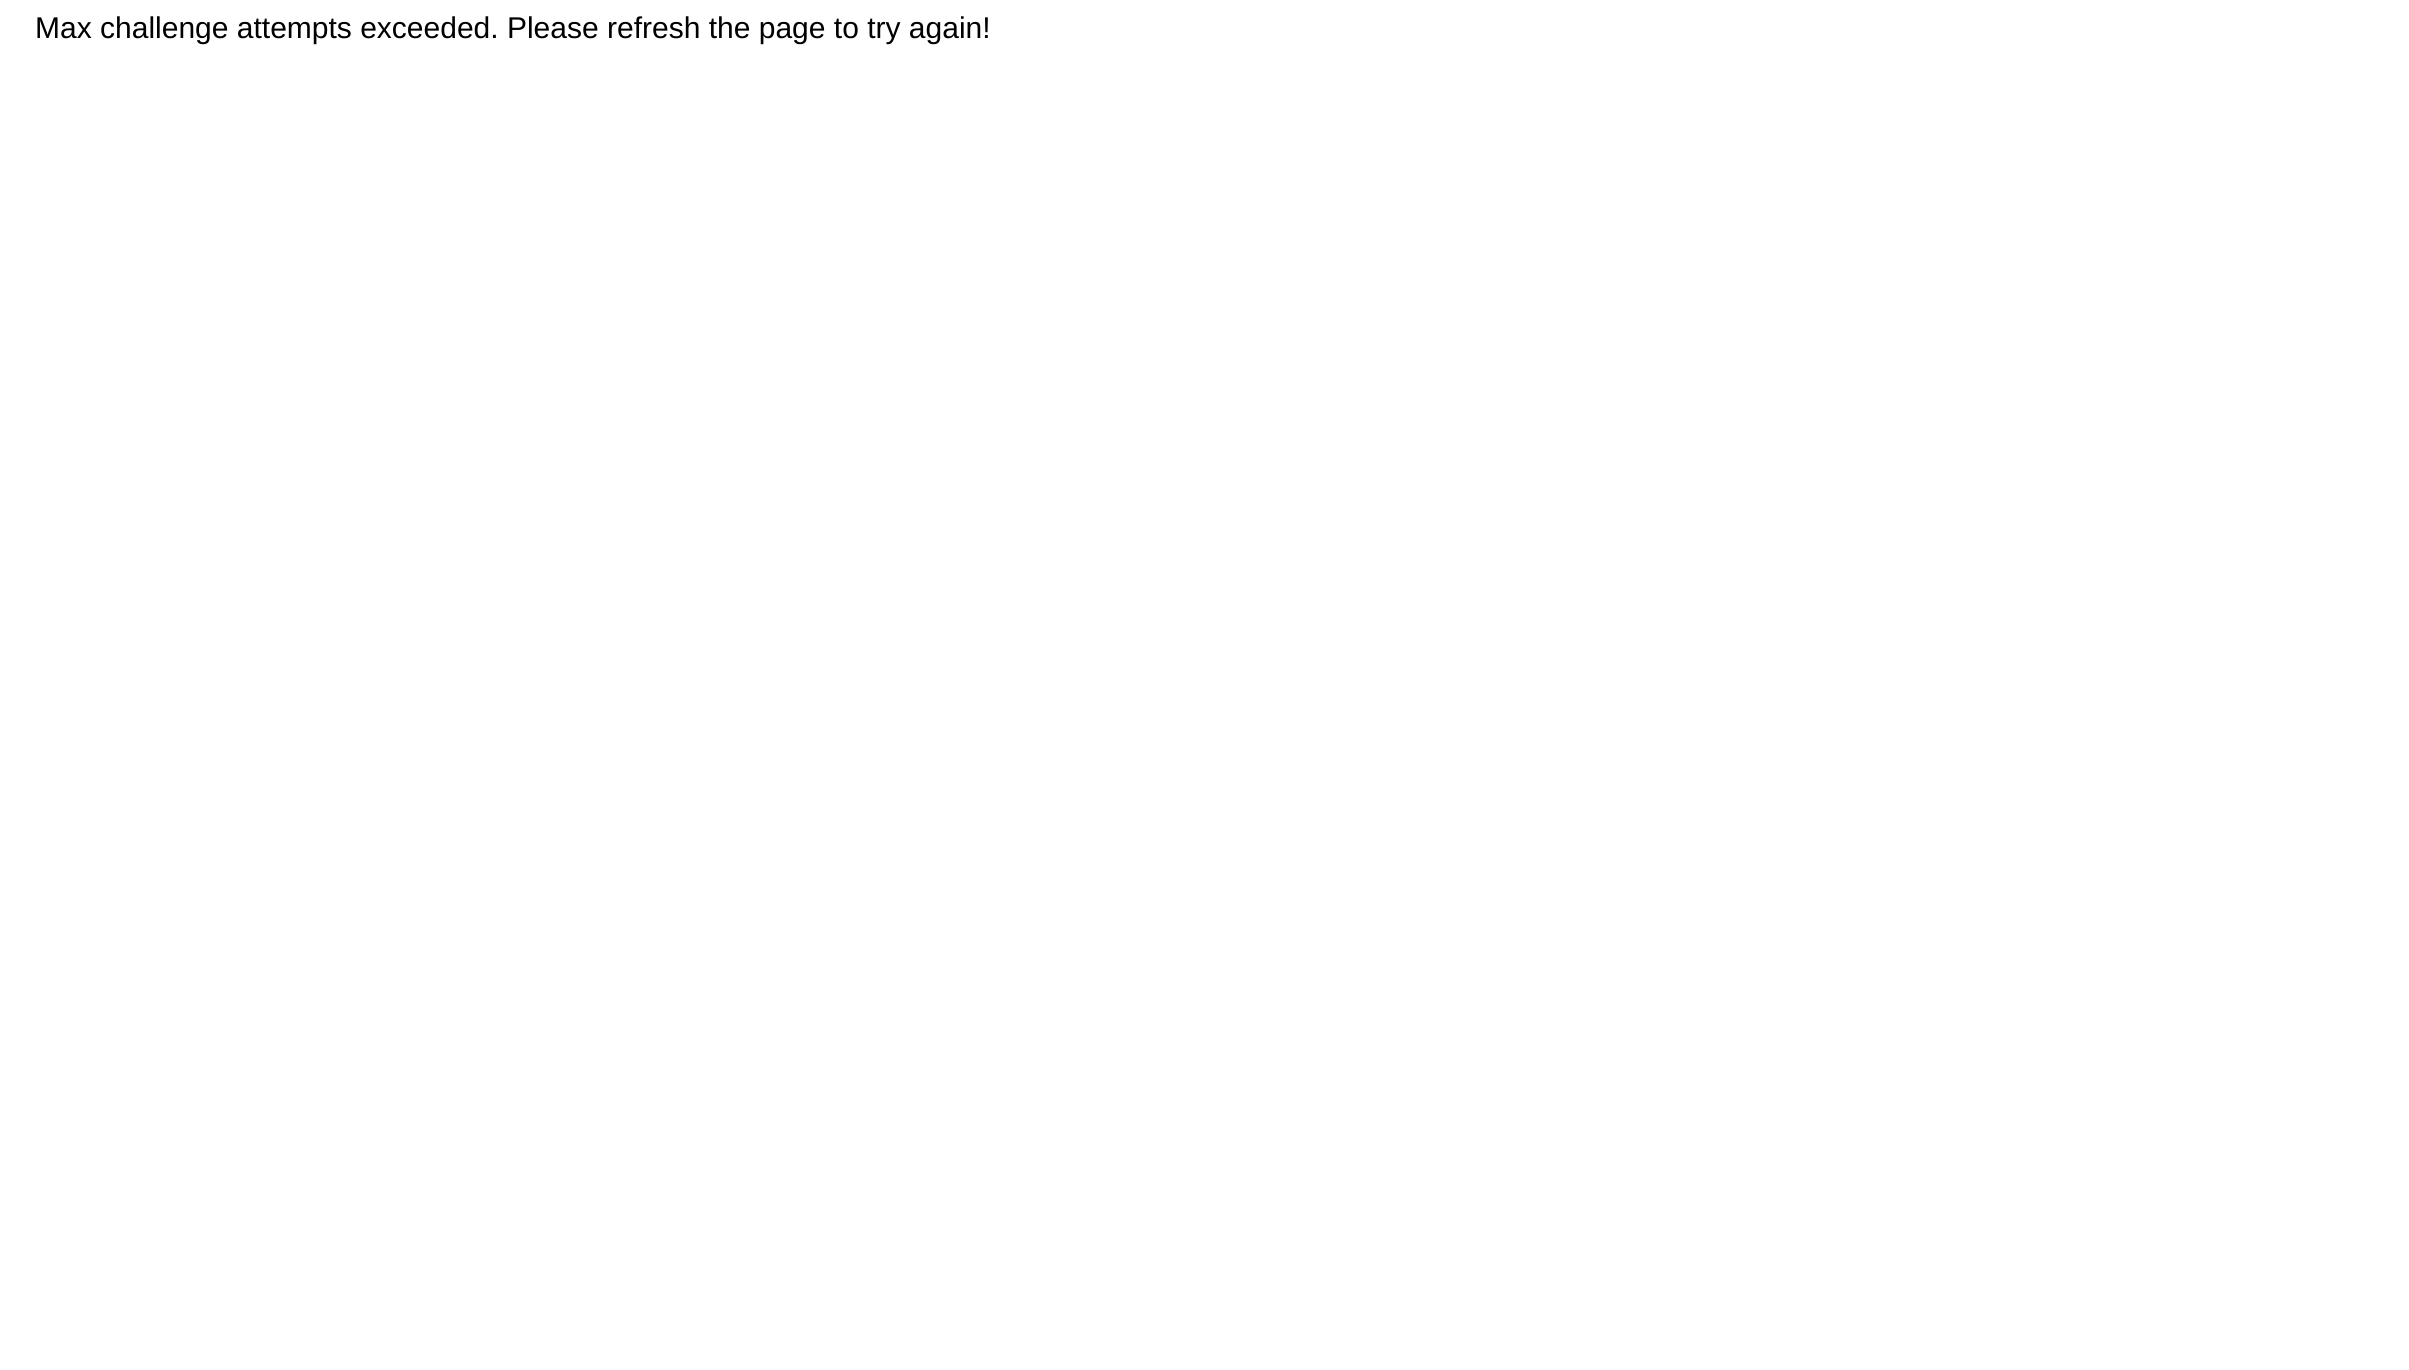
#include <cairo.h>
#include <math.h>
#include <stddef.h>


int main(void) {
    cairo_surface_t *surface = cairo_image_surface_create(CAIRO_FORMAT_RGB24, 2409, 1370);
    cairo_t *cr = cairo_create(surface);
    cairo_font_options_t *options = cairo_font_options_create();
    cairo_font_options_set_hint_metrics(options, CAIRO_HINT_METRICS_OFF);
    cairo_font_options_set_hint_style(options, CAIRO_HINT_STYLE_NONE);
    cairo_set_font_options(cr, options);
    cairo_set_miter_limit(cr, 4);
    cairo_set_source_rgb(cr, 1, 1, 1);
    cairo_paint(cr);
    cairo_select_font_face(cr, "Liberation Sans", CAIRO_FONT_SLANT_NORMAL, CAIRO_FONT_WEIGHT_NORMAL);
    cairo_set_font_size(cr, 30);
    cairo_set_source_rgb(cr, 0, 0, 0);
    cairo_move_to(cr, 35, 38);
    cairo_show_text(cr, "Max challenge attempts exceeded. Please refresh the page to try again!");
    cairo_surface_write_to_png(surface, "page.png");
    cairo_font_options_destroy(options);
    cairo_destroy(cr);
    cairo_surface_destroy(surface);
    return 0;
}
